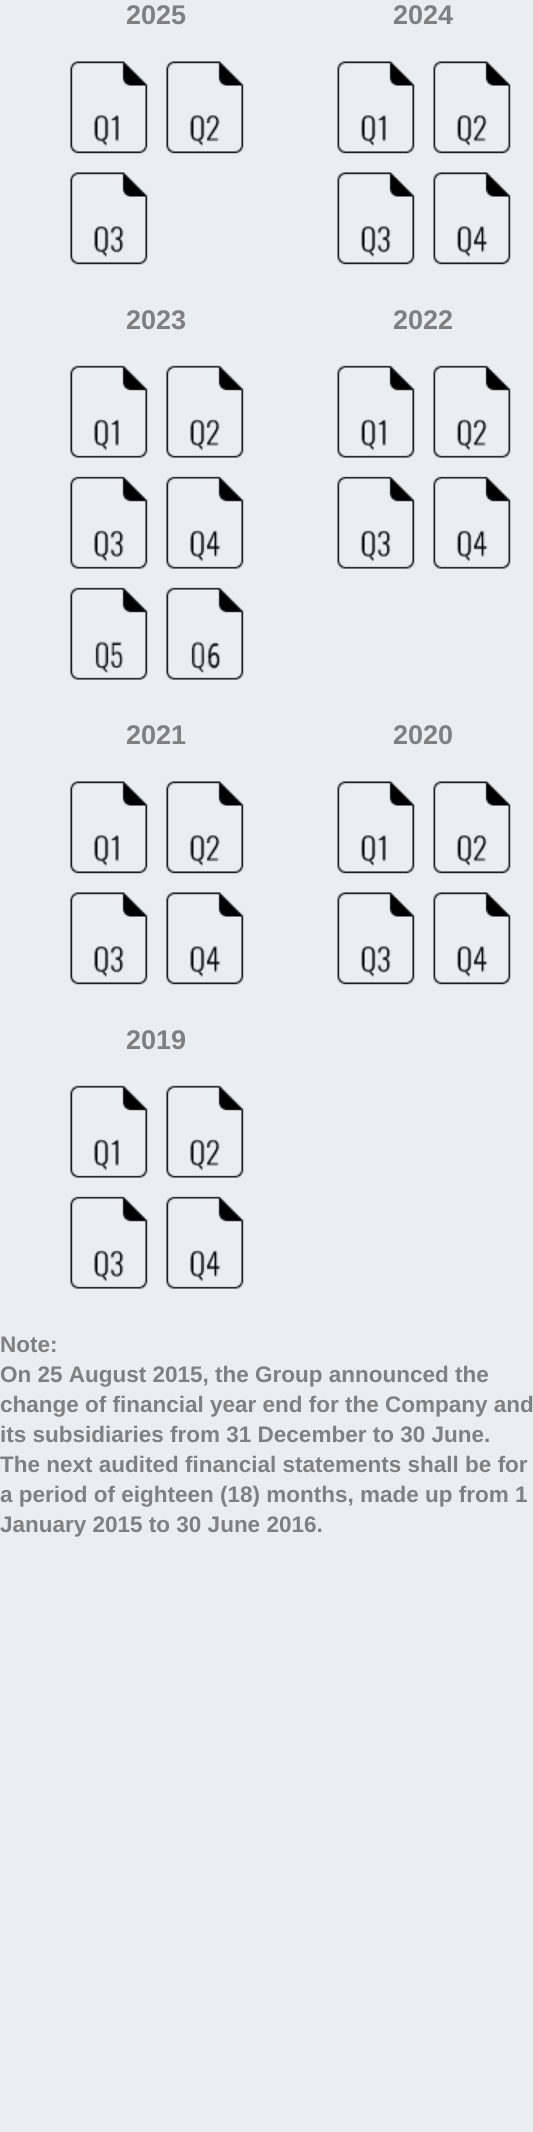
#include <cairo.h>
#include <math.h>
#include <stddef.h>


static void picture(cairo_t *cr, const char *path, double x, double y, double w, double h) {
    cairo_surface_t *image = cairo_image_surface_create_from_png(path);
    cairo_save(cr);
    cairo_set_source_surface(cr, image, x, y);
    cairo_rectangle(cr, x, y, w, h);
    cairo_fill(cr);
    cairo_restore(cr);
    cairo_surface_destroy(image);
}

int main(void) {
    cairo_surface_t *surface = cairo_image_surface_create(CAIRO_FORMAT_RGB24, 533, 2132);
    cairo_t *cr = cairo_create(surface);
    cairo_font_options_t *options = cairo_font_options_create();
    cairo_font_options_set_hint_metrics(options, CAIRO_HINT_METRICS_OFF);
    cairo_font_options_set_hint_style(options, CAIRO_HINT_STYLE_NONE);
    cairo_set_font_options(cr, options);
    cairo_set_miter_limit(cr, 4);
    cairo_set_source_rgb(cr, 0.925, 0.929, 0.937);
    cairo_paint(cr);
    cairo_select_font_face(cr, "Liberation Sans", CAIRO_FONT_SLANT_NORMAL, CAIRO_FONT_WEIGHT_BOLD);
    cairo_set_font_size(cr, 27);
    cairo_set_source_rgb(cr, 0.502, 0.502, 0.502);
    cairo_move_to(cr, 126, 24);
    cairo_show_text(cr, "2025");
    picture(cr, "img1.png", 70, 61, 78, 93);
    picture(cr, "img2.png", 166, 61, 78, 93);
    picture(cr, "img3.png", 70, 172, 78, 93);
    cairo_move_to(cr, 393, 24);
    cairo_show_text(cr, "2024");
    picture(cr, "img4.png", 337, 61, 78, 93);
    picture(cr, "img5.png", 433, 61, 78, 93);
    picture(cr, "img6.png", 337, 172, 78, 93);
    picture(cr, "img7.png", 433, 172, 78, 93);
    cairo_move_to(cr, 126, 329);
    cairo_show_text(cr, "2023");
    picture(cr, "img8.png", 70, 365, 78, 93);
    picture(cr, "img9.png", 166, 365, 78, 93);
    picture(cr, "img10.png", 70, 476, 78, 93);
    picture(cr, "img11.png", 166, 476, 78, 93);
    picture(cr, "img12.png", 70, 587, 78, 93);
    picture(cr, "img13.png", 166, 587, 78, 93);
    cairo_move_to(cr, 393, 329);
    cairo_show_text(cr, "2022");
    picture(cr, "img14.png", 337, 365, 78, 93);
    picture(cr, "img15.png", 433, 365, 78, 93);
    picture(cr, "img16.png", 337, 476, 78, 93);
    picture(cr, "img17.png", 433, 476, 78, 93);
    cairo_move_to(cr, 126, 744);
    cairo_show_text(cr, "2021");
    picture(cr, "img1.png", 70, 781, 78, 93);
    picture(cr, "img2.png", 166, 781, 78, 93);
    picture(cr, "img3.png", 70, 892, 78, 93);
    picture(cr, "img18.png", 166, 892, 78, 93);
    cairo_move_to(cr, 393, 744);
    cairo_show_text(cr, "2020");
    picture(cr, "img4.png", 337, 781, 78, 93);
    picture(cr, "img5.png", 433, 781, 78, 93);
    picture(cr, "img6.png", 337, 892, 78, 93);
    picture(cr, "img7.png", 433, 892, 78, 93);
    cairo_move_to(cr, 126, 1049);
    cairo_show_text(cr, "2019");
    picture(cr, "img8.png", 70, 1085, 78, 93);
    picture(cr, "img9.png", 166, 1085, 78, 93);
    picture(cr, "img10.png", 70, 1196, 78, 93);
    picture(cr, "img11.png", 166, 1196, 78, 93);
    cairo_set_font_size(cr, 22.5);
    cairo_move_to(cr, 0, 1352);
    cairo_show_text(cr, "Note:");
    cairo_move_to(cr, 0, 1382);
    cairo_show_text(cr, "On 25 August 2015, the Group announced the");
    cairo_move_to(cr, 0, 1412);
    cairo_show_text(cr, "change of financial year end for the Company and");
    cairo_move_to(cr, 0, 1442);
    cairo_show_text(cr, "its subsidiaries from 31 December to 30 June.");
    cairo_move_to(cr, 0, 1472);
    cairo_show_text(cr, "The next audited financial statements shall be for");
    cairo_move_to(cr, 0, 1502);
    cairo_show_text(cr, "a period of eighteen (18) months, made up from 1");
    cairo_move_to(cr, 0, 1532);
    cairo_show_text(cr, "January 2015 to 30 June 2016.");
    cairo_surface_write_to_png(surface, "page.png");
    cairo_font_options_destroy(options);
    cairo_destroy(cr);
    cairo_surface_destroy(surface);
    return 0;
}
